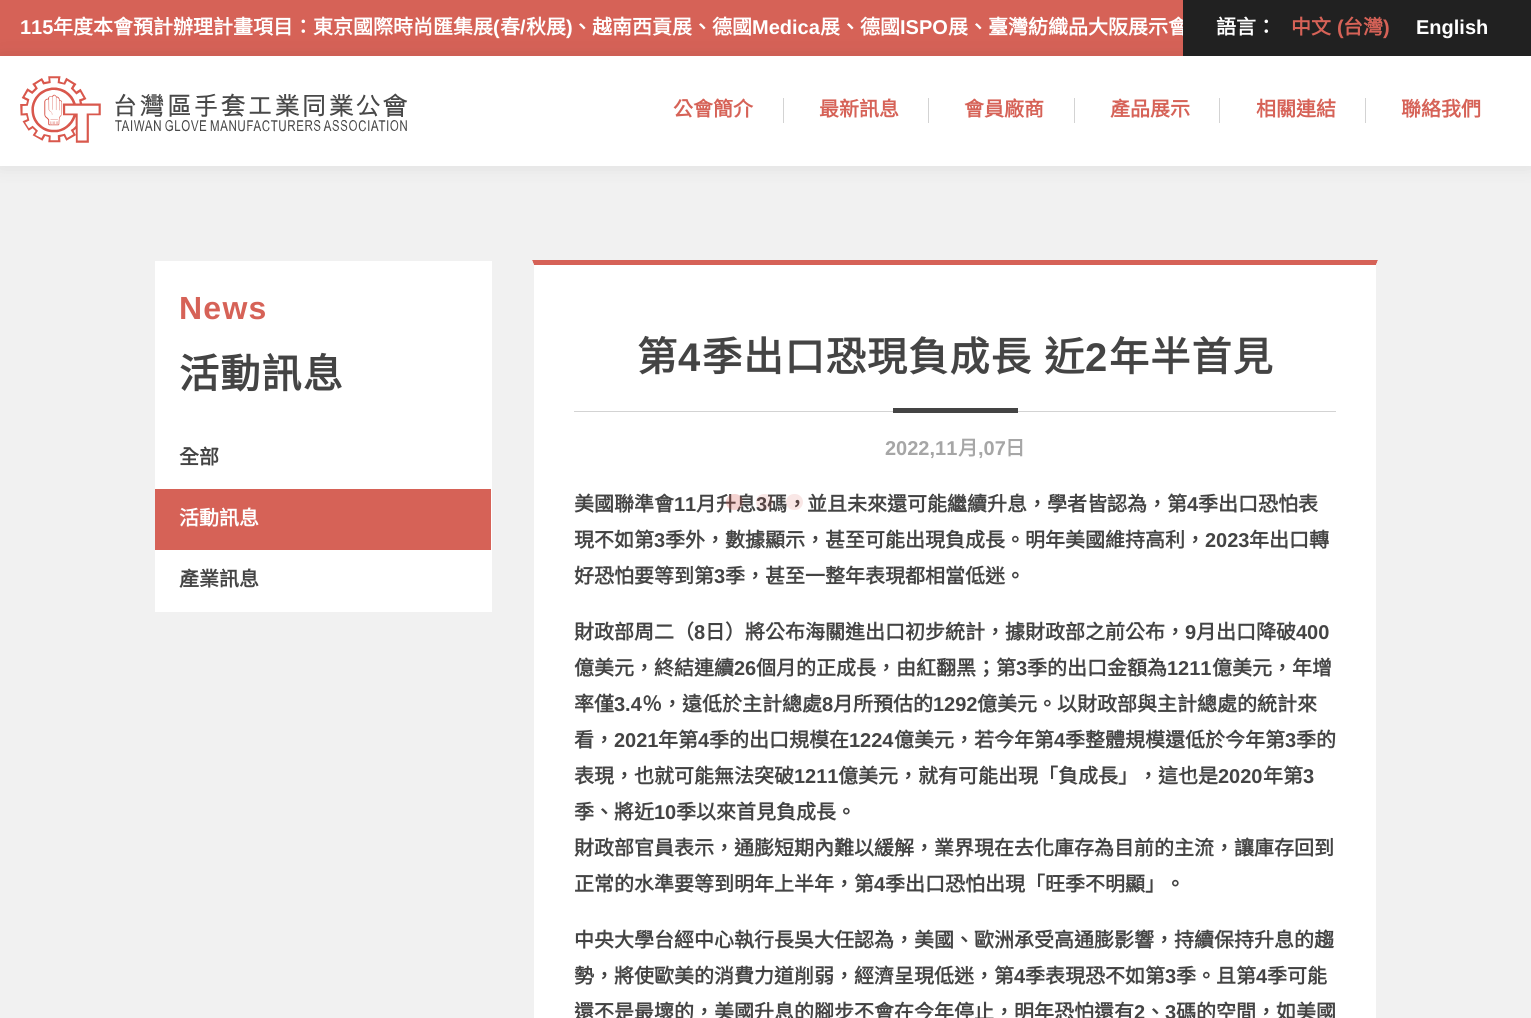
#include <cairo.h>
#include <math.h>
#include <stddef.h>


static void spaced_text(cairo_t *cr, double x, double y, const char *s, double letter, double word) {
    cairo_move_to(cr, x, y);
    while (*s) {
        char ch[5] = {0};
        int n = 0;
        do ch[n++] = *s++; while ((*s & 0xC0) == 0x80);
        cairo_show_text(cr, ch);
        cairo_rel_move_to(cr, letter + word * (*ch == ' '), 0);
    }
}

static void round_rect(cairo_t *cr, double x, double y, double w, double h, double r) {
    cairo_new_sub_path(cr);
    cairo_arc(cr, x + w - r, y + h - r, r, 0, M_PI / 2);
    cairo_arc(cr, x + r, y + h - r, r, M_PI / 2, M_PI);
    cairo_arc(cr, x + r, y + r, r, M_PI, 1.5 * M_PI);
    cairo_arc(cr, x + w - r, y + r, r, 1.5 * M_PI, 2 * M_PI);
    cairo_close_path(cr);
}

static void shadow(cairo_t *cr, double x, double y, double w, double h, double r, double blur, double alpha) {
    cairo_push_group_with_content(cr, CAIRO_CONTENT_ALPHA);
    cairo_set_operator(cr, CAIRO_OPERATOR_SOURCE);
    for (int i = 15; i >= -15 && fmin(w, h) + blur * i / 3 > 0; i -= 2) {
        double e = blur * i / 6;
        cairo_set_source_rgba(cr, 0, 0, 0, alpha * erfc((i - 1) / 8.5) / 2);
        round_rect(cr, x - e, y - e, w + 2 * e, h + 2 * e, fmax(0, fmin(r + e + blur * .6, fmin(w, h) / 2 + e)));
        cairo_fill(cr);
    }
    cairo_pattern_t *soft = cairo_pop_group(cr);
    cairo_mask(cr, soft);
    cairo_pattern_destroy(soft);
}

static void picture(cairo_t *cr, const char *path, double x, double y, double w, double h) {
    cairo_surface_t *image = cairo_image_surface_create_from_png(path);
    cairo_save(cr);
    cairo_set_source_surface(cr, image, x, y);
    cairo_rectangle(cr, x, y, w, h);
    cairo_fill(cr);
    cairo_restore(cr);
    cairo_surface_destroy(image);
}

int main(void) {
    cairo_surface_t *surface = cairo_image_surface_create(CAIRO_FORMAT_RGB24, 1531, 1018);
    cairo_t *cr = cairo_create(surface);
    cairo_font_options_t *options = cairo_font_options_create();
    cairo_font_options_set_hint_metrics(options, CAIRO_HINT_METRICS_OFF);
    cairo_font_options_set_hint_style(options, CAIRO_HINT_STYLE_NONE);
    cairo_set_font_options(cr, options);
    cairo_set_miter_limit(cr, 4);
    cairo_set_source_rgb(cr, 0.945, 0.945, 0.945);
    cairo_paint(cr);
    cairo_set_source_rgb(cr, 0.839, 0.384, 0.341);
    cairo_rectangle(cr, 0, 0, 1183, 56);
    cairo_fill(cr);
    cairo_select_font_face(cr, "Liberation Sans", CAIRO_FONT_SLANT_NORMAL, CAIRO_FONT_WEIGHT_BOLD);
    cairo_set_font_size(cr, 20);
    cairo_set_source_rgb(cr, 1, 1, 1);
    cairo_move_to(cr, 20, 34);
    cairo_show_text(cr, "115");
    cairo_select_font_face(cr, "Noto Sans CJK TC", CAIRO_FONT_SLANT_NORMAL, CAIRO_FONT_WEIGHT_BOLD);
    cairo_move_to(cr, 53, 34);
    cairo_show_text(cr, "年度本會預計辦理計畫項目：東京國際時尚匯集展");
    cairo_select_font_face(cr, "Liberation Sans", CAIRO_FONT_SLANT_NORMAL, CAIRO_FONT_WEIGHT_BOLD);
    cairo_move_to(cr, 493, 34);
    cairo_show_text(cr, "(");
    cairo_select_font_face(cr, "Noto Sans CJK TC", CAIRO_FONT_SLANT_NORMAL, CAIRO_FONT_WEIGHT_BOLD);
    cairo_move_to(cr, 500, 34);
    cairo_show_text(cr, "春");
    cairo_select_font_face(cr, "Liberation Sans", CAIRO_FONT_SLANT_NORMAL, CAIRO_FONT_WEIGHT_BOLD);
    cairo_move_to(cr, 520, 34);
    cairo_show_text(cr, "/");
    cairo_select_font_face(cr, "Noto Sans CJK TC", CAIRO_FONT_SLANT_NORMAL, CAIRO_FONT_WEIGHT_BOLD);
    cairo_move_to(cr, 526, 34);
    cairo_show_text(cr, "秋展");
    cairo_select_font_face(cr, "Liberation Sans", CAIRO_FONT_SLANT_NORMAL, CAIRO_FONT_WEIGHT_BOLD);
    cairo_move_to(cr, 566, 34);
    cairo_show_text(cr, ")");
    cairo_select_font_face(cr, "Noto Sans CJK TC", CAIRO_FONT_SLANT_NORMAL, CAIRO_FONT_WEIGHT_BOLD);
    cairo_move_to(cr, 572, 34);
    cairo_show_text(cr, "、越南西貢展、德國");
    cairo_select_font_face(cr, "Liberation Sans", CAIRO_FONT_SLANT_NORMAL, CAIRO_FONT_WEIGHT_BOLD);
    cairo_move_to(cr, 752, 34);
    cairo_show_text(cr, "Medica");
    cairo_select_font_face(cr, "Noto Sans CJK TC", CAIRO_FONT_SLANT_NORMAL, CAIRO_FONT_WEIGHT_BOLD);
    cairo_move_to(cr, 820, 34);
    cairo_show_text(cr, "展、德國");
    cairo_select_font_face(cr, "Liberation Sans", CAIRO_FONT_SLANT_NORMAL, CAIRO_FONT_WEIGHT_BOLD);
    cairo_move_to(cr, 900, 34);
    cairo_show_text(cr, "ISPO");
    cairo_save(cr);
    cairo_rectangle(cr, 0, 0, 1183, 56);
    cairo_clip(cr);
    cairo_select_font_face(cr, "Noto Sans CJK TC", CAIRO_FONT_SLANT_NORMAL, CAIRO_FONT_WEIGHT_BOLD);
    cairo_move_to(cr, 948, 34);
    cairo_show_text(cr, "展、臺灣紡織品大阪展示會");
    cairo_restore(cr);
    cairo_set_source_rgb(cr, 0.129, 0.129, 0.129);
    cairo_rectangle(cr, 1183, 0, 348, 56);
    cairo_fill(cr);
    cairo_select_font_face(cr, "Noto Sans CJK TC", CAIRO_FONT_SLANT_NORMAL, CAIRO_FONT_WEIGHT_BOLD);
    cairo_set_source_rgb(cr, 1, 1, 1);
    cairo_move_to(cr, 1216, 34);
    cairo_show_text(cr, "語言：");
    cairo_set_source_rgb(cr, 0.839, 0.384, 0.341);
    cairo_move_to(cr, 1291, 34);
    cairo_show_text(cr, "中文");
    cairo_select_font_face(cr, "Liberation Sans", CAIRO_FONT_SLANT_NORMAL, CAIRO_FONT_WEIGHT_BOLD);
    cairo_move_to(cr, 1337, 34);
    cairo_show_text(cr, "(");
    cairo_select_font_face(cr, "Noto Sans CJK TC", CAIRO_FONT_SLANT_NORMAL, CAIRO_FONT_WEIGHT_BOLD);
    cairo_move_to(cr, 1343, 34);
    cairo_show_text(cr, "台灣");
    cairo_select_font_face(cr, "Liberation Sans", CAIRO_FONT_SLANT_NORMAL, CAIRO_FONT_WEIGHT_BOLD);
    cairo_move_to(cr, 1383, 34);
    cairo_show_text(cr, ")");
    cairo_set_source_rgb(cr, 1, 1, 1);
    cairo_move_to(cr, 1416, 34);
    cairo_show_text(cr, "English");
    cairo_set_source_rgb(cr, 0.129, 0.129, 0.129);
    shadow(cr, 0, 56, 1531, 110, 0, 9.5, 0.1);
    cairo_set_source_rgb(cr, 1, 1, 1);
    cairo_rectangle(cr, 0, 56, 1531, 110);
    cairo_fill(cr);
    picture(cr, "img1.png", 20, 76, 388, 67);
    cairo_select_font_face(cr, "Noto Sans CJK TC", CAIRO_FONT_SLANT_NORMAL, CAIRO_FONT_WEIGHT_BOLD);
    cairo_set_source_rgb(cr, 0.839, 0.384, 0.341);
    cairo_move_to(cr, 673, 116);
    cairo_show_text(cr, "公會簡介");
    cairo_set_source_rgb(cr, 0.827, 0.827, 0.827);
    cairo_rectangle(cr, 783, 98, 1, 25);
    cairo_fill(cr);
    cairo_set_source_rgb(cr, 0.839, 0.384, 0.341);
    cairo_move_to(cr, 819, 116);
    cairo_show_text(cr, "最新訊息");
    cairo_set_source_rgb(cr, 0.827, 0.827, 0.827);
    cairo_rectangle(cr, 928, 98, 1, 25);
    cairo_fill(cr);
    cairo_set_source_rgb(cr, 0.839, 0.384, 0.341);
    cairo_move_to(cr, 964, 116);
    cairo_show_text(cr, "會員廠商");
    cairo_set_source_rgb(cr, 0.827, 0.827, 0.827);
    cairo_rectangle(cr, 1074, 98, 1, 25);
    cairo_fill(cr);
    cairo_set_source_rgb(cr, 0.839, 0.384, 0.341);
    cairo_move_to(cr, 1110, 116);
    cairo_show_text(cr, "產品展示");
    cairo_set_source_rgb(cr, 0.827, 0.827, 0.827);
    cairo_rectangle(cr, 1219, 98, 1, 25);
    cairo_fill(cr);
    cairo_set_source_rgb(cr, 0.839, 0.384, 0.341);
    cairo_move_to(cr, 1256, 116);
    cairo_show_text(cr, "相關連結");
    cairo_set_source_rgb(cr, 0.827, 0.827, 0.827);
    cairo_rectangle(cr, 1365, 98, 1, 25);
    cairo_fill(cr);
    cairo_set_source_rgb(cr, 0.839, 0.384, 0.341);
    cairo_move_to(cr, 1401, 116);
    cairo_show_text(cr, "聯絡我們");
    cairo_set_source_rgb(cr, 1, 1, 1);
    cairo_rectangle(cr, 155, 261, 337, 351);
    cairo_fill(cr);
    cairo_select_font_face(cr, "Liberation Sans", CAIRO_FONT_SLANT_NORMAL, CAIRO_FONT_WEIGHT_BOLD);
    cairo_set_font_size(cr, 32);
    cairo_set_source_rgb(cr, 0.839, 0.384, 0.341);
    spaced_text(cr, 179, 319, "News", 1.25, 0);
    cairo_select_font_face(cr, "Noto Sans CJK TC", CAIRO_FONT_SLANT_NORMAL, CAIRO_FONT_WEIGHT_BOLD);
    cairo_set_font_size(cr, 40);
    cairo_set_source_rgb(cr, 0.267, 0.267, 0.267);
    spaced_text(cr, 179, 388, "活動訊息", 1.25, 0);
    cairo_set_font_size(cr, 20);
    cairo_move_to(cr, 179, 464);
    cairo_show_text(cr, "全部");
    cairo_set_source_rgb(cr, 0.839, 0.384, 0.341);
    cairo_rectangle(cr, 155, 489, 336, 61);
    cairo_fill(cr);
    cairo_set_source_rgb(cr, 1, 1, 1);
    cairo_move_to(cr, 179, 525);
    cairo_show_text(cr, "活動訊息");
    cairo_set_source_rgb(cr, 0.267, 0.267, 0.267);
    cairo_move_to(cr, 179, 586);
    cairo_show_text(cr, "產業訊息");
    cairo_set_source_rgb(cr, 1, 1, 1);
    cairo_rectangle(cr, 534, 265, 842, 753);
    cairo_fill(cr);
    cairo_set_source_rgb(cr, 0.839, 0.384, 0.341);
    cairo_new_path(cr);
    cairo_move_to(cr, 532, 260);
    cairo_line_to(cr, 1378, 260);
    cairo_line_to(cr, 1376, 265);
    cairo_line_to(cr, 534, 265);
    cairo_close_path(cr);
    cairo_fill(cr);
    cairo_set_source_rgb(cr, 0.945, 0.945, 0.945);
    cairo_new_path(cr);
    cairo_move_to(cr, 1378, 260);
    cairo_line_to(cr, 1378, 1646);
    cairo_line_to(cr, 1376, 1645);
    cairo_line_to(cr, 1376, 265);
    cairo_close_path(cr);
    cairo_fill(cr);
    cairo_new_path(cr);
    cairo_move_to(cr, 532, 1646);
    cairo_line_to(cr, 532, 260);
    cairo_line_to(cr, 534, 265);
    cairo_line_to(cr, 534, 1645);
    cairo_close_path(cr);
    cairo_fill(cr);
    cairo_set_font_size(cr, 40);
    cairo_set_source_rgb(cr, 0.267, 0.267, 0.267);
    spaced_text(cr, 637, 371, "第", 1.25, 0);
    cairo_select_font_face(cr, "Liberation Sans", CAIRO_FONT_SLANT_NORMAL, CAIRO_FONT_WEIGHT_BOLD);
    spaced_text(cr, 678, 371, "4", 1.25, 0);
    cairo_select_font_face(cr, "Noto Sans CJK TC", CAIRO_FONT_SLANT_NORMAL, CAIRO_FONT_WEIGHT_BOLD);
    spaced_text(cr, 702, 371, "季出口恐現負成長 近", 1.25, 2);
    cairo_select_font_face(cr, "Liberation Sans", CAIRO_FONT_SLANT_NORMAL, CAIRO_FONT_WEIGHT_BOLD);
    spaced_text(cr, 1085, 371, "2", 1.25, 0);
    cairo_select_font_face(cr, "Noto Sans CJK TC", CAIRO_FONT_SLANT_NORMAL, CAIRO_FONT_WEIGHT_BOLD);
    spaced_text(cr, 1109, 371, "年半首見", 1.25, 0);
    cairo_set_source_rgb(cr, 0.827, 0.827, 0.827);
    cairo_rectangle(cr, 574, 411, 762, 1);
    cairo_fill(cr);
    cairo_set_source_rgb(cr, 0.267, 0.267, 0.267);
    cairo_rectangle(cr, 893, 408, 125, 5);
    cairo_fill(cr);
    cairo_select_font_face(cr, "Liberation Sans", CAIRO_FONT_SLANT_NORMAL, CAIRO_FONT_WEIGHT_BOLD);
    cairo_set_font_size(cr, 20);
    cairo_set_source_rgb(cr, 0.651, 0.651, 0.651);
    cairo_move_to(cr, 885, 455);
    cairo_show_text(cr, "2022,11");
    cairo_select_font_face(cr, "Noto Sans CJK TC", CAIRO_FONT_SLANT_NORMAL, CAIRO_FONT_WEIGHT_BOLD);
    cairo_move_to(cr, 958, 455);
    cairo_show_text(cr, "月");
    cairo_select_font_face(cr, "Liberation Sans", CAIRO_FONT_SLANT_NORMAL, CAIRO_FONT_WEIGHT_BOLD);
    cairo_move_to(cr, 978, 455);
    cairo_show_text(cr, ",07");
    cairo_select_font_face(cr, "Noto Sans CJK TC", CAIRO_FONT_SLANT_NORMAL, CAIRO_FONT_WEIGHT_BOLD);
    cairo_move_to(cr, 1005, 455);
    cairo_show_text(cr, "日");
    cairo_set_source_rgb(cr, 0.267, 0.267, 0.267);
    cairo_move_to(cr, 574, 511);
    cairo_show_text(cr, "美國聯準會");
    cairo_select_font_face(cr, "Liberation Sans", CAIRO_FONT_SLANT_NORMAL, CAIRO_FONT_WEIGHT_BOLD);
    cairo_move_to(cr, 674, 511);
    cairo_show_text(cr, "11");
    cairo_select_font_face(cr, "Noto Sans CJK TC", CAIRO_FONT_SLANT_NORMAL, CAIRO_FONT_WEIGHT_BOLD);
    cairo_move_to(cr, 696, 511);
    cairo_show_text(cr, "月升息");
    cairo_select_font_face(cr, "Liberation Sans", CAIRO_FONT_SLANT_NORMAL, CAIRO_FONT_WEIGHT_BOLD);
    cairo_move_to(cr, 756, 511);
    cairo_show_text(cr, "3");
    cairo_select_font_face(cr, "Noto Sans CJK TC", CAIRO_FONT_SLANT_NORMAL, CAIRO_FONT_WEIGHT_BOLD);
    cairo_move_to(cr, 767, 511);
    cairo_show_text(cr, "碼，並且未來還可能繼續升息，學者皆認為，第");
    cairo_select_font_face(cr, "Liberation Sans", CAIRO_FONT_SLANT_NORMAL, CAIRO_FONT_WEIGHT_BOLD);
    cairo_move_to(cr, 1187, 511);
    cairo_show_text(cr, "4");
    cairo_select_font_face(cr, "Noto Sans CJK TC", CAIRO_FONT_SLANT_NORMAL, CAIRO_FONT_WEIGHT_BOLD);
    cairo_move_to(cr, 1198, 511);
    cairo_show_text(cr, "季出口恐怕表");
    cairo_move_to(cr, 574, 547);
    cairo_show_text(cr, "現不如第");
    cairo_select_font_face(cr, "Liberation Sans", CAIRO_FONT_SLANT_NORMAL, CAIRO_FONT_WEIGHT_BOLD);
    cairo_move_to(cr, 654, 547);
    cairo_show_text(cr, "3");
    cairo_select_font_face(cr, "Noto Sans CJK TC", CAIRO_FONT_SLANT_NORMAL, CAIRO_FONT_WEIGHT_BOLD);
    cairo_move_to(cr, 665, 547);
    cairo_show_text(cr, "季外，數據顯示，甚至可能出現負成長。明年美國維持高利，");
    cairo_select_font_face(cr, "Liberation Sans", CAIRO_FONT_SLANT_NORMAL, CAIRO_FONT_WEIGHT_BOLD);
    cairo_move_to(cr, 1205, 547);
    cairo_show_text(cr, "2023");
    cairo_select_font_face(cr, "Noto Sans CJK TC", CAIRO_FONT_SLANT_NORMAL, CAIRO_FONT_WEIGHT_BOLD);
    cairo_move_to(cr, 1249, 547);
    cairo_show_text(cr, "年出口轉");
    cairo_move_to(cr, 574, 583);
    cairo_show_text(cr, "好恐怕要等到第");
    cairo_select_font_face(cr, "Liberation Sans", CAIRO_FONT_SLANT_NORMAL, CAIRO_FONT_WEIGHT_BOLD);
    cairo_move_to(cr, 714, 583);
    cairo_show_text(cr, "3");
    cairo_select_font_face(cr, "Noto Sans CJK TC", CAIRO_FONT_SLANT_NORMAL, CAIRO_FONT_WEIGHT_BOLD);
    cairo_move_to(cr, 725, 583);
    cairo_show_text(cr, "季，甚至一整年表現都相當低迷。");
    cairo_move_to(cr, 574, 639);
    cairo_show_text(cr, "財政部周二（");
    cairo_select_font_face(cr, "Liberation Sans", CAIRO_FONT_SLANT_NORMAL, CAIRO_FONT_WEIGHT_BOLD);
    cairo_move_to(cr, 694, 639);
    cairo_show_text(cr, "8");
    cairo_select_font_face(cr, "Noto Sans CJK TC", CAIRO_FONT_SLANT_NORMAL, CAIRO_FONT_WEIGHT_BOLD);
    cairo_move_to(cr, 705, 639);
    cairo_show_text(cr, "日）將公布海關進出口初步統計，據財政部之前公布，");
    cairo_select_font_face(cr, "Liberation Sans", CAIRO_FONT_SLANT_NORMAL, CAIRO_FONT_WEIGHT_BOLD);
    cairo_move_to(cr, 1185, 639);
    cairo_show_text(cr, "9");
    cairo_select_font_face(cr, "Noto Sans CJK TC", CAIRO_FONT_SLANT_NORMAL, CAIRO_FONT_WEIGHT_BOLD);
    cairo_move_to(cr, 1196, 639);
    cairo_show_text(cr, "月出口降破");
    cairo_select_font_face(cr, "Liberation Sans", CAIRO_FONT_SLANT_NORMAL, CAIRO_FONT_WEIGHT_BOLD);
    cairo_move_to(cr, 1296, 639);
    cairo_show_text(cr, "400");
    cairo_select_font_face(cr, "Noto Sans CJK TC", CAIRO_FONT_SLANT_NORMAL, CAIRO_FONT_WEIGHT_BOLD);
    cairo_move_to(cr, 574, 675);
    cairo_show_text(cr, "億美元，終結連續");
    cairo_select_font_face(cr, "Liberation Sans", CAIRO_FONT_SLANT_NORMAL, CAIRO_FONT_WEIGHT_BOLD);
    cairo_move_to(cr, 734, 675);
    cairo_show_text(cr, "26");
    cairo_select_font_face(cr, "Noto Sans CJK TC", CAIRO_FONT_SLANT_NORMAL, CAIRO_FONT_WEIGHT_BOLD);
    cairo_move_to(cr, 756, 675);
    cairo_show_text(cr, "個月的正成長，由紅翻黑；第");
    cairo_select_font_face(cr, "Liberation Sans", CAIRO_FONT_SLANT_NORMAL, CAIRO_FONT_WEIGHT_BOLD);
    cairo_move_to(cr, 1016, 675);
    cairo_show_text(cr, "3");
    cairo_select_font_face(cr, "Noto Sans CJK TC", CAIRO_FONT_SLANT_NORMAL, CAIRO_FONT_WEIGHT_BOLD);
    cairo_move_to(cr, 1027, 675);
    cairo_show_text(cr, "季的出口金額為");
    cairo_select_font_face(cr, "Liberation Sans", CAIRO_FONT_SLANT_NORMAL, CAIRO_FONT_WEIGHT_BOLD);
    cairo_move_to(cr, 1167, 675);
    cairo_show_text(cr, "1211");
    cairo_select_font_face(cr, "Noto Sans CJK TC", CAIRO_FONT_SLANT_NORMAL, CAIRO_FONT_WEIGHT_BOLD);
    cairo_move_to(cr, 1212, 675);
    cairo_show_text(cr, "億美元，年增");
    cairo_move_to(cr, 574, 711);
    cairo_show_text(cr, "率僅");
    cairo_select_font_face(cr, "Liberation Sans", CAIRO_FONT_SLANT_NORMAL, CAIRO_FONT_WEIGHT_BOLD);
    cairo_move_to(cr, 614, 711);
    cairo_show_text(cr, "3.4");
    cairo_select_font_face(cr, "Noto Sans CJK TC", CAIRO_FONT_SLANT_NORMAL, CAIRO_FONT_WEIGHT_BOLD);
    cairo_move_to(cr, 642, 711);
    cairo_show_text(cr, "％，遠低於主計總處");
    cairo_select_font_face(cr, "Liberation Sans", CAIRO_FONT_SLANT_NORMAL, CAIRO_FONT_WEIGHT_BOLD);
    cairo_move_to(cr, 822, 711);
    cairo_show_text(cr, "8");
    cairo_select_font_face(cr, "Noto Sans CJK TC", CAIRO_FONT_SLANT_NORMAL, CAIRO_FONT_WEIGHT_BOLD);
    cairo_move_to(cr, 833, 711);
    cairo_show_text(cr, "月所預估的");
    cairo_select_font_face(cr, "Liberation Sans", CAIRO_FONT_SLANT_NORMAL, CAIRO_FONT_WEIGHT_BOLD);
    cairo_move_to(cr, 933, 711);
    cairo_show_text(cr, "1292");
    cairo_select_font_face(cr, "Noto Sans CJK TC", CAIRO_FONT_SLANT_NORMAL, CAIRO_FONT_WEIGHT_BOLD);
    cairo_move_to(cr, 977, 711);
    cairo_show_text(cr, "億美元。以財政部與主計總處的統計來");
    cairo_move_to(cr, 574, 747);
    cairo_show_text(cr, "看，");
    cairo_select_font_face(cr, "Liberation Sans", CAIRO_FONT_SLANT_NORMAL, CAIRO_FONT_WEIGHT_BOLD);
    cairo_move_to(cr, 614, 747);
    cairo_show_text(cr, "2021");
    cairo_select_font_face(cr, "Noto Sans CJK TC", CAIRO_FONT_SLANT_NORMAL, CAIRO_FONT_WEIGHT_BOLD);
    cairo_move_to(cr, 658, 747);
    cairo_show_text(cr, "年第");
    cairo_select_font_face(cr, "Liberation Sans", CAIRO_FONT_SLANT_NORMAL, CAIRO_FONT_WEIGHT_BOLD);
    cairo_move_to(cr, 698, 747);
    cairo_show_text(cr, "4");
    cairo_select_font_face(cr, "Noto Sans CJK TC", CAIRO_FONT_SLANT_NORMAL, CAIRO_FONT_WEIGHT_BOLD);
    cairo_move_to(cr, 709, 747);
    cairo_show_text(cr, "季的出口規模在");
    cairo_select_font_face(cr, "Liberation Sans", CAIRO_FONT_SLANT_NORMAL, CAIRO_FONT_WEIGHT_BOLD);
    cairo_move_to(cr, 849, 747);
    cairo_show_text(cr, "1224");
    cairo_select_font_face(cr, "Noto Sans CJK TC", CAIRO_FONT_SLANT_NORMAL, CAIRO_FONT_WEIGHT_BOLD);
    cairo_move_to(cr, 894, 747);
    cairo_show_text(cr, "億美元，若今年第");
    cairo_select_font_face(cr, "Liberation Sans", CAIRO_FONT_SLANT_NORMAL, CAIRO_FONT_WEIGHT_BOLD);
    cairo_move_to(cr, 1054, 747);
    cairo_show_text(cr, "4");
    cairo_select_font_face(cr, "Noto Sans CJK TC", CAIRO_FONT_SLANT_NORMAL, CAIRO_FONT_WEIGHT_BOLD);
    cairo_move_to(cr, 1065, 747);
    cairo_show_text(cr, "季整體規模還低於今年第");
    cairo_select_font_face(cr, "Liberation Sans", CAIRO_FONT_SLANT_NORMAL, CAIRO_FONT_WEIGHT_BOLD);
    cairo_move_to(cr, 1285, 747);
    cairo_show_text(cr, "3");
    cairo_select_font_face(cr, "Noto Sans CJK TC", CAIRO_FONT_SLANT_NORMAL, CAIRO_FONT_WEIGHT_BOLD);
    cairo_move_to(cr, 1296, 747);
    cairo_show_text(cr, "季的");
    cairo_move_to(cr, 574, 783);
    cairo_show_text(cr, "表現，也就可能無法突破");
    cairo_select_font_face(cr, "Liberation Sans", CAIRO_FONT_SLANT_NORMAL, CAIRO_FONT_WEIGHT_BOLD);
    cairo_move_to(cr, 794, 783);
    cairo_show_text(cr, "1211");
    cairo_select_font_face(cr, "Noto Sans CJK TC", CAIRO_FONT_SLANT_NORMAL, CAIRO_FONT_WEIGHT_BOLD);
    cairo_move_to(cr, 838, 783);
    cairo_show_text(cr, "億美元，就有可能出現「負成長」，這也是");
    cairo_select_font_face(cr, "Liberation Sans", CAIRO_FONT_SLANT_NORMAL, CAIRO_FONT_WEIGHT_BOLD);
    cairo_move_to(cr, 1218, 783);
    cairo_show_text(cr, "2020");
    cairo_select_font_face(cr, "Noto Sans CJK TC", CAIRO_FONT_SLANT_NORMAL, CAIRO_FONT_WEIGHT_BOLD);
    cairo_move_to(cr, 1263, 783);
    cairo_show_text(cr, "年第");
    cairo_select_font_face(cr, "Liberation Sans", CAIRO_FONT_SLANT_NORMAL, CAIRO_FONT_WEIGHT_BOLD);
    cairo_move_to(cr, 1303, 783);
    cairo_show_text(cr, "3");
    cairo_select_font_face(cr, "Noto Sans CJK TC", CAIRO_FONT_SLANT_NORMAL, CAIRO_FONT_WEIGHT_BOLD);
    cairo_move_to(cr, 574, 819);
    cairo_show_text(cr, "季、將近");
    cairo_select_font_face(cr, "Liberation Sans", CAIRO_FONT_SLANT_NORMAL, CAIRO_FONT_WEIGHT_BOLD);
    cairo_move_to(cr, 654, 819);
    cairo_show_text(cr, "10");
    cairo_select_font_face(cr, "Noto Sans CJK TC", CAIRO_FONT_SLANT_NORMAL, CAIRO_FONT_WEIGHT_BOLD);
    cairo_move_to(cr, 676, 819);
    cairo_show_text(cr, "季以來首見負成長。");
    cairo_move_to(cr, 574, 855);
    cairo_show_text(cr, "財政部官員表示，通膨短期內難以緩解，業界現在去化庫存為目前的主流，讓庫存回到");
    cairo_move_to(cr, 574, 891);
    cairo_show_text(cr, "正常的水準要等到明年上半年，第");
    cairo_select_font_face(cr, "Liberation Sans", CAIRO_FONT_SLANT_NORMAL, CAIRO_FONT_WEIGHT_BOLD);
    cairo_move_to(cr, 874, 891);
    cairo_show_text(cr, "4");
    cairo_select_font_face(cr, "Noto Sans CJK TC", CAIRO_FONT_SLANT_NORMAL, CAIRO_FONT_WEIGHT_BOLD);
    cairo_move_to(cr, 885, 891);
    cairo_show_text(cr, "季出口恐怕出現「旺季不明顯」。");
    cairo_move_to(cr, 574, 947);
    cairo_show_text(cr, "中央大學台經中心執行長吳大任認為，美國、歐洲承受高通膨影響，持續保持升息的趨");
    cairo_move_to(cr, 574, 983);
    cairo_show_text(cr, "勢，將使歐美的消費力道削弱，經濟呈現低迷，第");
    cairo_select_font_face(cr, "Liberation Sans", CAIRO_FONT_SLANT_NORMAL, CAIRO_FONT_WEIGHT_BOLD);
    cairo_move_to(cr, 1014, 983);
    cairo_show_text(cr, "4");
    cairo_select_font_face(cr, "Noto Sans CJK TC", CAIRO_FONT_SLANT_NORMAL, CAIRO_FONT_WEIGHT_BOLD);
    cairo_move_to(cr, 1025, 983);
    cairo_show_text(cr, "季表現恐不如第");
    cairo_select_font_face(cr, "Liberation Sans", CAIRO_FONT_SLANT_NORMAL, CAIRO_FONT_WEIGHT_BOLD);
    cairo_move_to(cr, 1165, 983);
    cairo_show_text(cr, "3");
    cairo_select_font_face(cr, "Noto Sans CJK TC", CAIRO_FONT_SLANT_NORMAL, CAIRO_FONT_WEIGHT_BOLD);
    cairo_move_to(cr, 1176, 983);
    cairo_show_text(cr, "季。且第");
    cairo_select_font_face(cr, "Liberation Sans", CAIRO_FONT_SLANT_NORMAL, CAIRO_FONT_WEIGHT_BOLD);
    cairo_move_to(cr, 1256, 983);
    cairo_show_text(cr, "4");
    cairo_select_font_face(cr, "Noto Sans CJK TC", CAIRO_FONT_SLANT_NORMAL, CAIRO_FONT_WEIGHT_BOLD);
    cairo_move_to(cr, 1267, 983);
    cairo_show_text(cr, "季可能");
    cairo_move_to(cr, 574, 1019);
    cairo_show_text(cr, "還不是最壞的，美國升息的腳步不會在今年停止，明年恐怕還有");
    cairo_select_font_face(cr, "Liberation Sans", CAIRO_FONT_SLANT_NORMAL, CAIRO_FONT_WEIGHT_BOLD);
    cairo_move_to(cr, 1134, 1019);
    cairo_show_text(cr, "2");
    cairo_select_font_face(cr, "Noto Sans CJK TC", CAIRO_FONT_SLANT_NORMAL, CAIRO_FONT_WEIGHT_BOLD);
    cairo_move_to(cr, 1145, 1019);
    cairo_show_text(cr, "、");
    cairo_select_font_face(cr, "Liberation Sans", CAIRO_FONT_SLANT_NORMAL, CAIRO_FONT_WEIGHT_BOLD);
    cairo_move_to(cr, 1165, 1019);
    cairo_show_text(cr, "3");
    cairo_select_font_face(cr, "Noto Sans CJK TC", CAIRO_FONT_SLANT_NORMAL, CAIRO_FONT_WEIGHT_BOLD);
    cairo_move_to(cr, 1176, 1019);
    cairo_show_text(cr, "碼的空間，如美國");
    cairo_set_source_rgba(cr, 0.816, 0.29, 0.243, 0.13);
    round_rect(cr, 726, 494, 17, 16, 8);
    cairo_fill(cr);
    round_rect(cr, 726, 494, 17, 16, 8);
    cairo_fill(cr);
    round_rect(cr, 756, 494, 17, 16, 8);
    cairo_fill(cr);
    round_rect(cr, 786, 494, 17, 16, 8);
    cairo_fill(cr);
    cairo_surface_write_to_png(surface, "page.png");
    cairo_font_options_destroy(options);
    cairo_destroy(cr);
    cairo_surface_destroy(surface);
    return 0;
}
